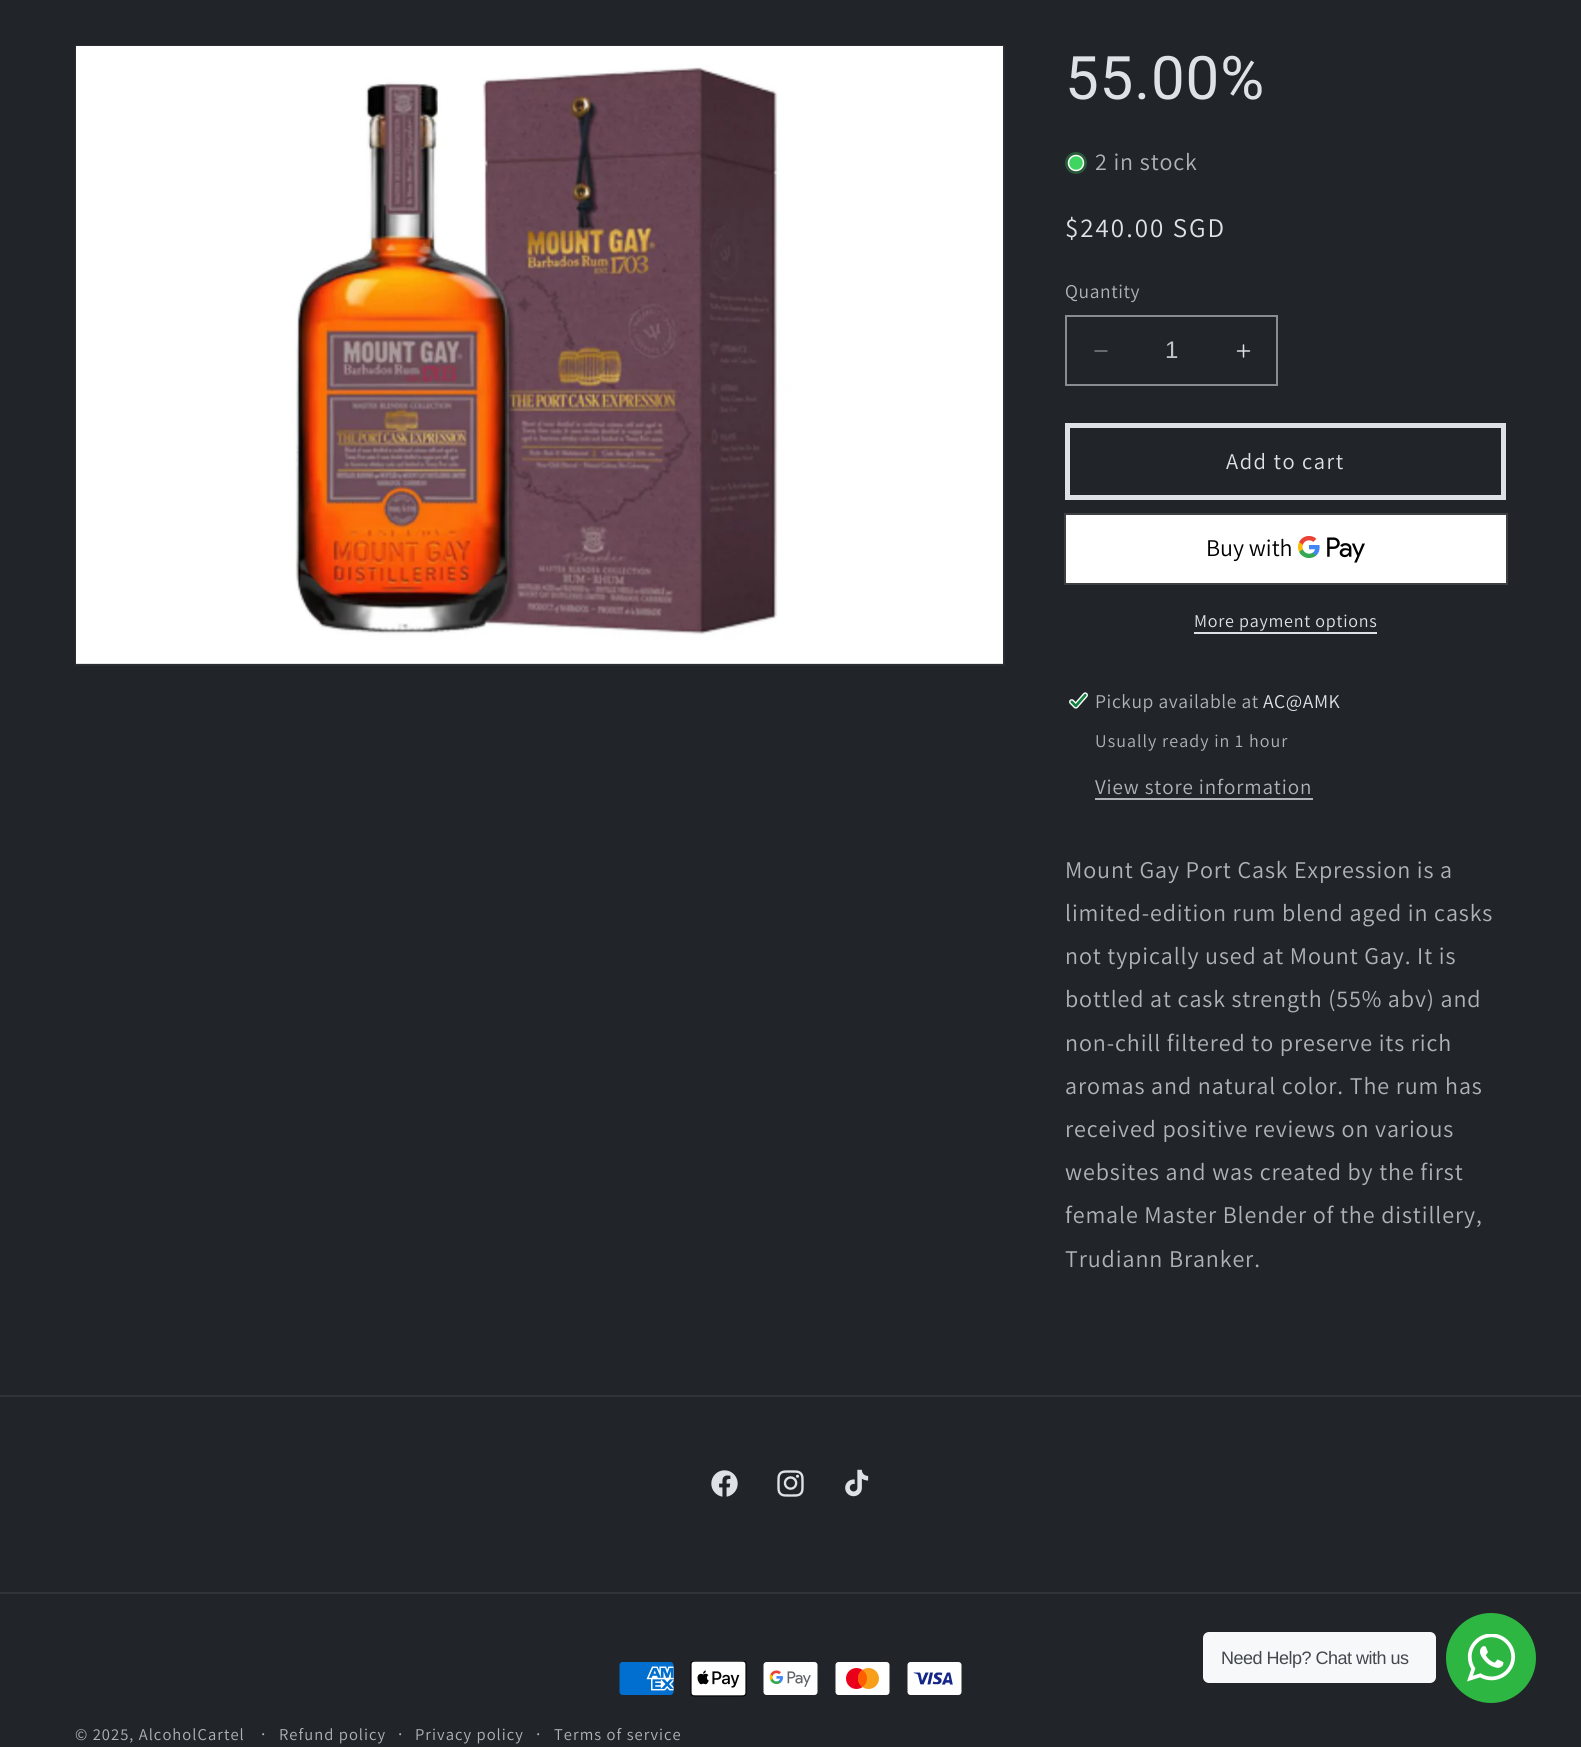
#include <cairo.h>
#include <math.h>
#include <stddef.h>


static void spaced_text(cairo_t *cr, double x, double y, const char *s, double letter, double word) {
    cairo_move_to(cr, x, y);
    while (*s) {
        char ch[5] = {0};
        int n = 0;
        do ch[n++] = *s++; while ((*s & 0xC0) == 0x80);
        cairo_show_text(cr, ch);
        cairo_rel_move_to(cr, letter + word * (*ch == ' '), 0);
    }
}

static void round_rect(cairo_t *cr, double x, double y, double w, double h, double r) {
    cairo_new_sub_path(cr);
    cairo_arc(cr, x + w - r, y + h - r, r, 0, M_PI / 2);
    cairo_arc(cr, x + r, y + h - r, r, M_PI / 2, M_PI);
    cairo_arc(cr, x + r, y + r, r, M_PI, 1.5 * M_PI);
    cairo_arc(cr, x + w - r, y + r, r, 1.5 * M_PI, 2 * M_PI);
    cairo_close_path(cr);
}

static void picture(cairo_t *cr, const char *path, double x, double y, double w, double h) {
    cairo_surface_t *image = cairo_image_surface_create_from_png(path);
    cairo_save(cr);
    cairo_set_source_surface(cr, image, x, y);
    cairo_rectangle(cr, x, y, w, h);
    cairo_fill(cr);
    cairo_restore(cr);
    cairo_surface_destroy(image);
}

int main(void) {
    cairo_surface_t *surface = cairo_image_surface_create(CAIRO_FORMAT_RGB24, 1581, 1747);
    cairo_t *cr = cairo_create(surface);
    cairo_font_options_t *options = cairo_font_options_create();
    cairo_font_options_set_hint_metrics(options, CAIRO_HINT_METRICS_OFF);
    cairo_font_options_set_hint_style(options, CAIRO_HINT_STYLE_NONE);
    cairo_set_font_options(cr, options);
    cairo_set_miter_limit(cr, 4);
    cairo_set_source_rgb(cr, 0.129, 0.145, 0.161);
    cairo_paint(cr);
    cairo_rectangle(cr, 76, 46, 928, 619);
    cairo_set_source_rgb(cr, 0.165, 0.18, 0.196);
    cairo_stroke(cr);
    picture(cr, "img1.png", 76, 46, 927, 618);
    cairo_select_font_face(cr, "Roboto", CAIRO_FONT_SLANT_NORMAL, CAIRO_FONT_WEIGHT_NORMAL);
    cairo_set_font_size(cr, 60);
    cairo_set_source_rgb(cr, 0.871, 0.886, 0.902);
    spaced_text(cr, 1065, 99, "55.00%", 0.9, 0);
    cairo_set_source_rgb(cr, 0.165, 0.353, 0.227);
    cairo_new_path(cr);
    cairo_arc(cr, 1076, 163, 11, 0, 2 * M_PI);
    cairo_fill(cr);
    cairo_set_source_rgb(cr, 0.243, 0.839, 0.376);
    cairo_arc(cr, 1076, 163, 7.5, 0, 2 * M_PI);
    cairo_fill_preserve(cr);
    cairo_set_source_rgb(cr, 1, 1, 1);
    cairo_set_line_width(cr, 1.5);
    cairo_stroke(cr);
    cairo_select_font_face(cr, "Assistant", CAIRO_FONT_SLANT_NORMAL, CAIRO_FONT_WEIGHT_NORMAL);
    cairo_set_font_size(cr, 24);
    cairo_set_source_rgb(cr, 0.686, 0.702, 0.718);
    spaced_text(cr, 1095, 170, "2 in stock", 0.9, 0);
    cairo_set_font_size(cr, 27);
    cairo_set_source_rgb(cr, 0.871, 0.886, 0.902);
    spaced_text(cr, 1065, 237, "$240.00 SGD", 2, 0);
    cairo_set_font_size(cr, 19.5);
    cairo_set_source_rgb(cr, 0.686, 0.702, 0.718);
    spaced_text(cr, 1065, 298, "Quantity", 0.6, 0);
    picture(cr, "img2.png", 1094, 350, 14, 2);
    picture(cr, "img3.png", 1236, 344, 15, 14);
    cairo_rectangle(cr, 1066, 316, 211, 69);
    cairo_set_source_rgb(cr, 0.537, 0.553, 0.569);
    cairo_set_line_width(cr, 2);
    cairo_stroke(cr);
    cairo_select_font_face(cr, "Liberation Sans", CAIRO_FONT_SLANT_NORMAL, CAIRO_FONT_WEIGHT_NORMAL);
    cairo_set_font_size(cr, 24);
    cairo_set_source_rgb(cr, 0.761, 0.776, 0.792);
    cairo_move_to(cr, 1165, 358);
    cairo_show_text(cr, "1");
    cairo_rectangle(cr, 1067.5, 425.5, 436, 72);
    cairo_set_source_rgb(cr, 0.871, 0.886, 0.902);
    cairo_set_line_width(cr, 5);
    cairo_stroke(cr);
    cairo_select_font_face(cr, "Assistant", CAIRO_FONT_SLANT_NORMAL, CAIRO_FONT_WEIGHT_NORMAL);
    cairo_set_font_size(cr, 22.5);
    spaced_text(cr, 1226, 469, "Add to cart", 1.5, 0);
    cairo_set_source_rgb(cr, 1, 1, 1);
    cairo_rectangle(cr, 1066, 515, 440, 68);
    cairo_fill(cr);
    cairo_rectangle(cr, 1065, 514, 442, 70);
    cairo_set_source_rgb(cr, 0.235, 0.251, 0.263);
    cairo_set_line_width(cr, 2);
    cairo_stroke(cr);
    cairo_set_font_size(cr, 24);
    cairo_set_source_rgb(cr, 0, 0, 0);
    cairo_move_to(cr, 1206, 556);
    cairo_show_text(cr, "Buy with");
    picture(cr, "img4.png", 1298, 536, 67, 27);
    cairo_set_font_size(cr, 18);
    cairo_set_source_rgb(cr, 0.871, 0.886, 0.902);
    spaced_text(cr, 1194, 627, "More payment options", 0.75, 0);
    cairo_rectangle(cr, 1194, 632, 183, 2);
    cairo_fill(cr);
    picture(cr, "img5.png", 1069, 692, 19, 17);
    cairo_set_font_size(cr, 19.5);
    cairo_set_source_rgb(cr, 0.686, 0.702, 0.718);
    spaced_text(cr, 1095, 708, "Pickup available at", 0.6, 0);
    cairo_set_source_rgb(cr, 0.871, 0.886, 0.902);
    spaced_text(cr, 1263, 708, "AC@AMK", 0.6, 0);
    cairo_set_font_size(cr, 18);
    cairo_set_source_rgb(cr, 0.686, 0.702, 0.718);
    spaced_text(cr, 1095, 747, "Usually ready in 1 hour", 1.05, 0);
    cairo_set_font_size(cr, 21);
    spaced_text(cr, 1095, 794, "View store information", 0.9, 0);
    cairo_rectangle(cr, 1095, 798, 218, 2);
    cairo_fill(cr);
    cairo_set_font_size(cr, 24);
    spaced_text(cr, 1065, 878, "Mount Gay Port Cask Expression is a", 0.9, 0);
    spaced_text(cr, 1065, 921, "limited-edition rum blend aged in casks", 0.9, 0);
    spaced_text(cr, 1065, 964, "not typically used at Mount Gay. It is", 0.9, 0);
    spaced_text(cr, 1065, 1007, "bottled at cask strength (55% abv) and", 0.9, 0);
    spaced_text(cr, 1065, 1051, "non-chill filtered to preserve its rich", 0.9, 0);
    spaced_text(cr, 1065, 1094, "aromas and natural color. The rum has", 0.9, 0);
    spaced_text(cr, 1065, 1137, "received positive reviews on various", 0.9, 0);
    spaced_text(cr, 1065, 1180, "websites and was created by the first", 0.9, 0);
    spaced_text(cr, 1065, 1223, "female Master Blender of the distillery,", 0.9, 0);
    spaced_text(cr, 1065, 1267, "Trudiann Branker.", 0.9, 0);
    cairo_set_source_rgb(cr, 0.961, 0.969, 0.976);
    round_rect(cr, 1203, 1632, 233, 51, 6);
    cairo_fill(cr);
    cairo_select_font_face(cr, "Liberation Sans", CAIRO_FONT_SLANT_NORMAL, CAIRO_FONT_WEIGHT_NORMAL);
    cairo_set_font_size(cr, 18);
    cairo_set_source_rgb(cr, 0.263, 0.278, 0.306);
    spaced_text(cr, 1221, 1664, "Need Help? Chat with us", -0.5, 0);
    cairo_set_source_rgb(cr, 0.176, 0.718, 0.259);
    cairo_new_path(cr);
    cairo_arc(cr, 1491, 1658, 45, 0, 2 * M_PI);
    cairo_fill(cr);
    picture(cr, "img6.png", 1467, 1634, 48, 48);
    cairo_set_source_rgb(cr, 0.188, 0.204, 0.22);
    cairo_rectangle(cr, 0, 1395, 1581, 2);
    cairo_fill(cr);
    picture(cr, "img7.png", 711, 1470, 27, 27);
    picture(cr, "img8.png", 777, 1470, 27, 27);
    picture(cr, "img9.png", 845, 1469, 24, 28);
    cairo_rectangle(cr, 0, 1592, 1581, 2);
    cairo_fill(cr);
    picture(cr, "img10.png", 619, 1662, 55, 33);
    picture(cr, "img11.png", 690, 1661, 57, 36);
    picture(cr, "img12.png", 763, 1662, 55, 33);
    picture(cr, "img13.png", 835, 1662, 55, 33);
    picture(cr, "img14.png", 907, 1662, 55, 33);
    cairo_select_font_face(cr, "Assistant", CAIRO_FONT_SLANT_NORMAL, CAIRO_FONT_WEIGHT_NORMAL);
    cairo_set_font_size(cr, 16.5);
    cairo_set_source_rgb(cr, 0.686, 0.702, 0.718);
    spaced_text(cr, 75, 1740, "© 2025, AlcoholCartel", 1.05, 0);
    cairo_set_font_size(cr, 18);
    spaced_text(cr, 261, 1740, "·", 1.05, 0);
    cairo_set_font_size(cr, 16.5);
    spaced_text(cr, 279, 1740, "Refund policy", 1.05, 0);
    cairo_set_font_size(cr, 18);
    spaced_text(cr, 398, 1740, "·", 1.05, 0);
    cairo_set_font_size(cr, 16.5);
    spaced_text(cr, 415, 1740, "Privacy policy", 1.05, 0);
    cairo_set_font_size(cr, 18);
    spaced_text(cr, 536, 1740, "·", 1.05, 0);
    cairo_set_font_size(cr, 16.5);
    spaced_text(cr, 554, 1740, "Terms of service", 1.05, 0);
    cairo_surface_write_to_png(surface, "page.png");
    cairo_font_options_destroy(options);
    cairo_destroy(cr);
    cairo_surface_destroy(surface);
    return 0;
}
